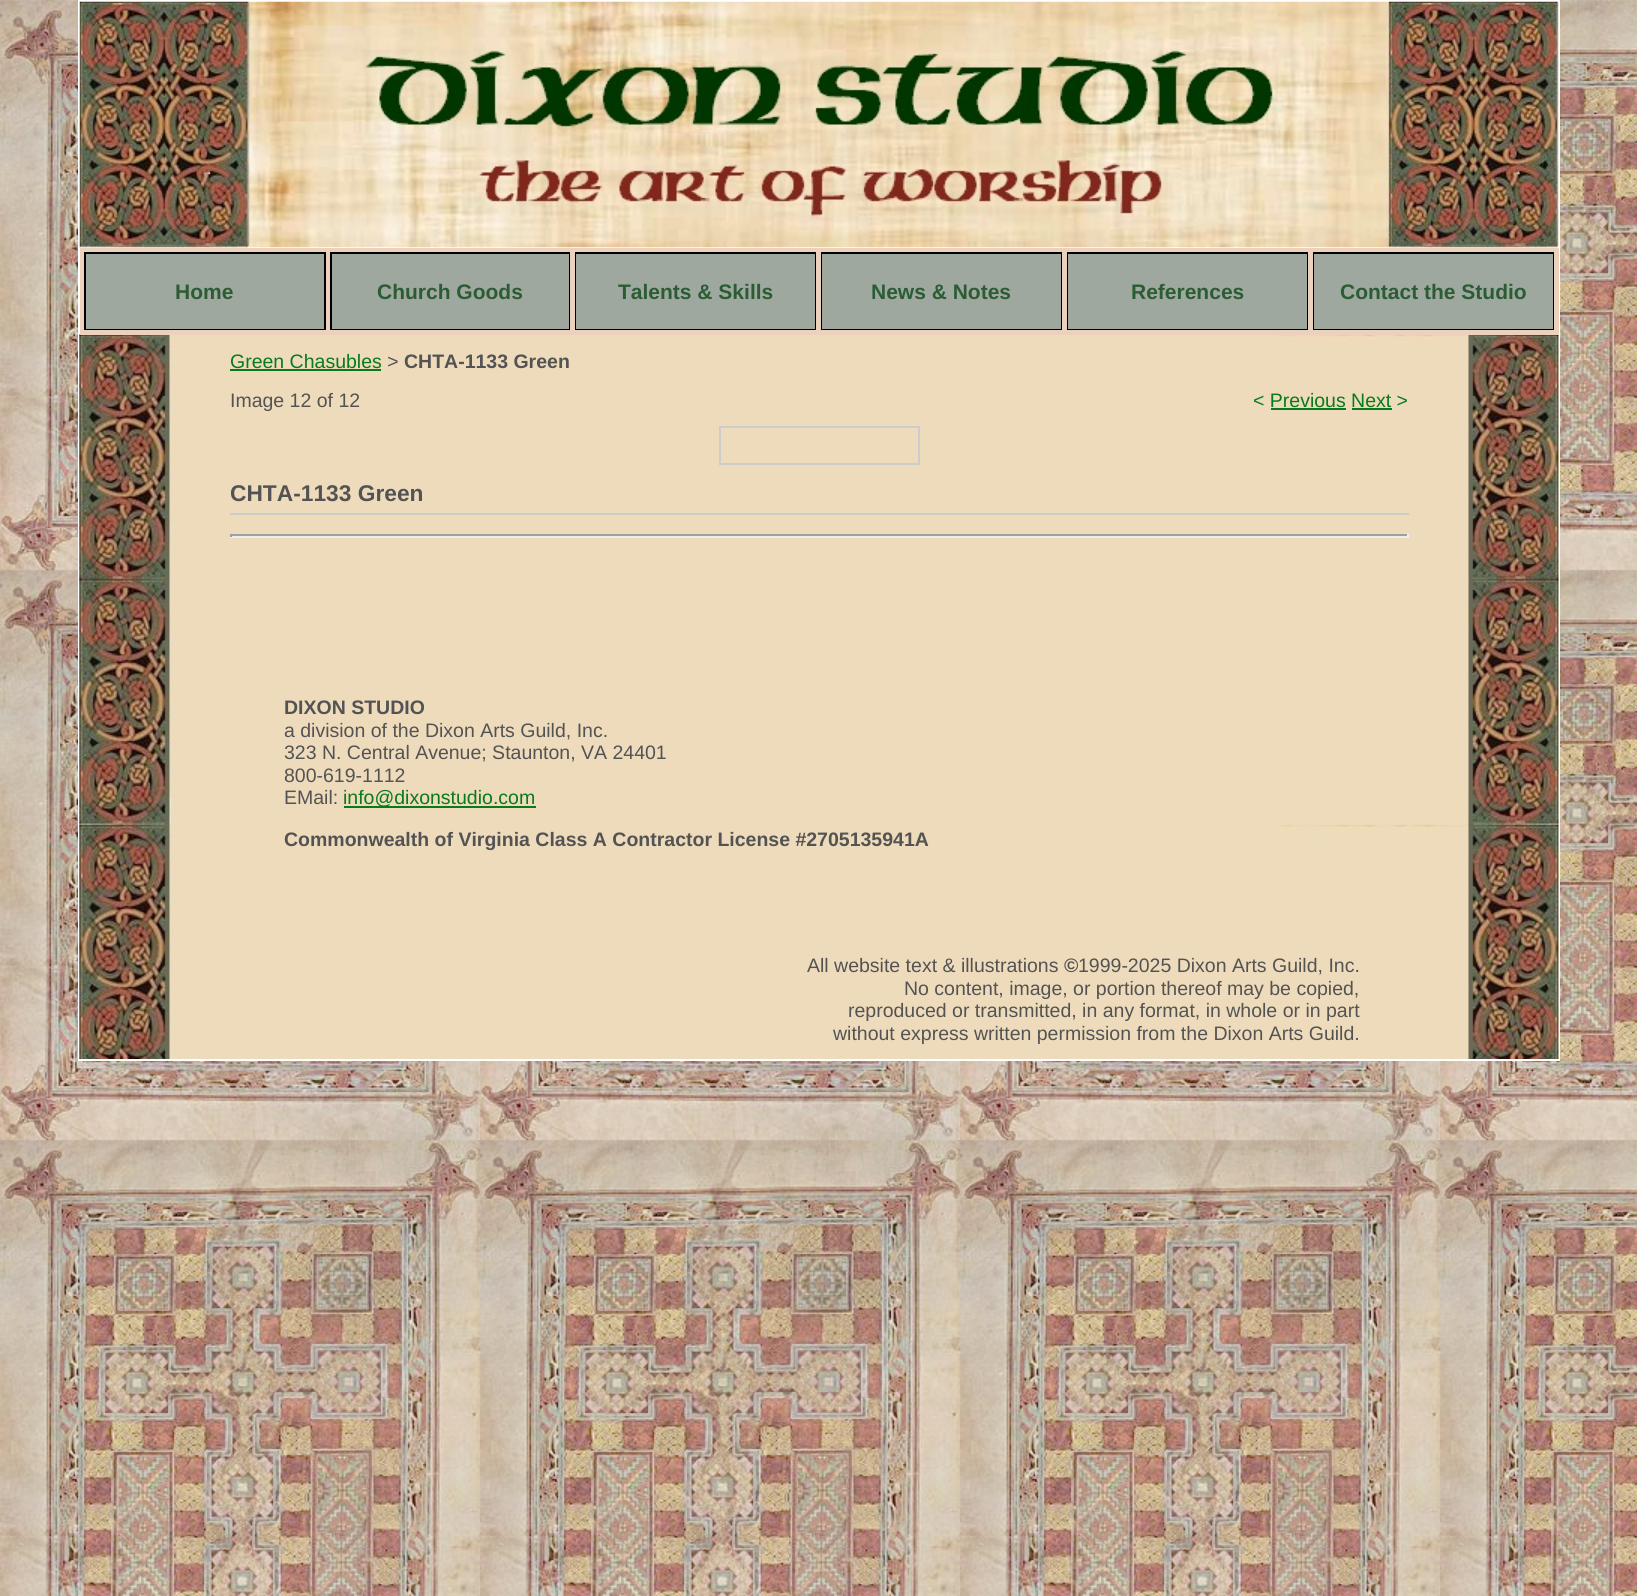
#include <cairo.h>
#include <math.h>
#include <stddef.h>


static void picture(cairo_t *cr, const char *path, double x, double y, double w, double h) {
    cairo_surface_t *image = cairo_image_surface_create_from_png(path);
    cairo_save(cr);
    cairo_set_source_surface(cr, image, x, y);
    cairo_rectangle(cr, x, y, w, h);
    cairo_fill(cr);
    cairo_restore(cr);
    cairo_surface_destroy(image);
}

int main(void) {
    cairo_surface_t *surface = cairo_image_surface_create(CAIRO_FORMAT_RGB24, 1637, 1596);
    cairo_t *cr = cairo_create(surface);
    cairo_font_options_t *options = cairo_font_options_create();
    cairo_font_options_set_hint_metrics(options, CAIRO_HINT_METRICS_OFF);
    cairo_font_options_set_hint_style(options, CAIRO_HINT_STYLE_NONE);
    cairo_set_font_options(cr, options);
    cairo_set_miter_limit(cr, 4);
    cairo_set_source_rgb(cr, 1, 1, 1);
    cairo_paint(cr);
    picture(cr, "img1.png", 0, 0, 1637, 1596);
    cairo_set_source_rgb(cr, 1, 1, 1);
    cairo_rectangle(cr, 78, 0, 1482, 1061);
    cairo_fill(cr);
    picture(cr, "img2.png", 79, 1, 1480, 247);
    picture(cr, "img3.png", 79, 334, 1, 725);
    picture(cr, "img4.png", 79, 334, 1480, 725);
    cairo_set_source_rgb(cr, 0.922, 0.82, 0.737);
    cairo_rectangle(cr, 80, 248, 1479, 87);
    cairo_fill(cr);
    cairo_set_source_rgb(cr, 0, 0, 0);
    cairo_rectangle(cr, 84, 252, 242, 78);
    cairo_fill(cr);
    cairo_set_source_rgb(cr, 0.62, 0.659, 0.624);
    cairo_rectangle(cr, 86, 254, 238, 75);
    cairo_fill(cr);
    cairo_select_font_face(cr, "Liberation Sans", CAIRO_FONT_SLANT_NORMAL, CAIRO_FONT_WEIGHT_BOLD);
    cairo_set_font_size(cr, 21);
    cairo_set_source_rgb(cr, 0.173, 0.361, 0.204);
    cairo_move_to(cr, 175, 299);
    cairo_show_text(cr, "Home");
    cairo_set_source_rgb(cr, 0, 0, 0);
    cairo_rectangle(cr, 330, 252, 240, 78);
    cairo_fill(cr);
    cairo_set_source_rgb(cr, 0.62, 0.659, 0.624);
    cairo_rectangle(cr, 332, 254, 237, 75);
    cairo_fill(cr);
    cairo_set_source_rgb(cr, 0.173, 0.361, 0.204);
    cairo_move_to(cr, 377, 299);
    cairo_show_text(cr, "Church Goods");
    cairo_set_source_rgb(cr, 0, 0, 0);
    cairo_rectangle(cr, 575, 252, 241, 78);
    cairo_fill(cr);
    cairo_set_source_rgb(cr, 0.62, 0.659, 0.624);
    cairo_rectangle(cr, 576, 254, 239, 75);
    cairo_fill(cr);
    cairo_set_source_rgb(cr, 0.173, 0.361, 0.204);
    cairo_move_to(cr, 618, 299);
    cairo_show_text(cr, "Talents & Skills");
    cairo_set_source_rgb(cr, 0, 0, 0);
    cairo_rectangle(cr, 821, 252, 241, 78);
    cairo_fill(cr);
    cairo_set_source_rgb(cr, 0.62, 0.659, 0.624);
    cairo_rectangle(cr, 822, 254, 239, 75);
    cairo_fill(cr);
    cairo_set_source_rgb(cr, 0.173, 0.361, 0.204);
    cairo_move_to(cr, 871, 299);
    cairo_show_text(cr, "News & Notes");
    cairo_set_source_rgb(cr, 0, 0, 0);
    cairo_rectangle(cr, 1067, 252, 241, 78);
    cairo_fill(cr);
    cairo_set_source_rgb(cr, 0.62, 0.659, 0.624);
    cairo_rectangle(cr, 1068, 254, 239, 75);
    cairo_fill(cr);
    cairo_set_source_rgb(cr, 0.173, 0.361, 0.204);
    cairo_move_to(cr, 1131, 299);
    cairo_show_text(cr, "References");
    cairo_set_source_rgb(cr, 0, 0, 0);
    cairo_rectangle(cr, 1313, 252, 241, 78);
    cairo_fill(cr);
    cairo_set_source_rgb(cr, 0.62, 0.659, 0.624);
    cairo_rectangle(cr, 1314, 254, 239, 75);
    cairo_fill(cr);
    cairo_set_source_rgb(cr, 0.173, 0.361, 0.204);
    cairo_move_to(cr, 1340, 299);
    cairo_show_text(cr, "Contact the Studio");
    cairo_select_font_face(cr, "Liberation Sans", CAIRO_FONT_SLANT_NORMAL, CAIRO_FONT_WEIGHT_NORMAL);
    cairo_set_font_size(cr, 19.5);
    cairo_set_source_rgb(cr, 0.035, 0.478, 0.11);
    cairo_move_to(cr, 230, 368);
    cairo_show_text(cr, "Green Chasubles");
    cairo_rectangle(cr, 230, 369, 151, 2);
    cairo_fill(cr);
    cairo_select_font_face(cr, "Liberation Mono", CAIRO_FONT_SLANT_NORMAL, CAIRO_FONT_WEIGHT_NORMAL);
    cairo_set_source_rgb(cr, 0.329, 0.325, 0.329);
    cairo_move_to(cr, 387, 368);
    cairo_show_text(cr, ">");
    cairo_select_font_face(cr, "Liberation Sans", CAIRO_FONT_SLANT_NORMAL, CAIRO_FONT_WEIGHT_BOLD);
    cairo_move_to(cr, 404, 368);
    cairo_show_text(cr, "CHTA-1133 Green");
    cairo_select_font_face(cr, "Liberation Sans", CAIRO_FONT_SLANT_NORMAL, CAIRO_FONT_WEIGHT_NORMAL);
    cairo_move_to(cr, 230, 407);
    cairo_show_text(cr, "Image 12 of 12");
    cairo_set_source_rgb(cr, 0.035, 0.478, 0.11);
    cairo_move_to(cr, 1253, 407);
    cairo_show_text(cr, "< Previous Next >");
    cairo_rectangle(cr, 1271, 408, 75, 2);
    cairo_fill(cr);
    cairo_rectangle(cr, 1352, 408, 40, 2);
    cairo_fill(cr);
    cairo_rectangle(cr, 720, 427, 199, 37);
    cairo_set_source_rgb(cr, 0.8, 0.8, 0.8);
    cairo_stroke(cr);
    cairo_rectangle(cr, 230, 513, 1179, 2);
    cairo_fill(cr);
    cairo_select_font_face(cr, "Liberation Sans", CAIRO_FONT_SLANT_NORMAL, CAIRO_FONT_WEIGHT_BOLD);
    cairo_set_font_size(cr, 22.75);
    cairo_set_source_rgb(cr, 0.329, 0.325, 0.329);
    cairo_move_to(cr, 230, 501);
    cairo_show_text(cr, "CHTA-1133 Green");
    cairo_set_source_rgb(cr, 0.624, 0.624, 0.624);
    cairo_rectangle(cr, 230, 534, 1179, 2);
    cairo_fill(cr);
    cairo_set_source_rgb(cr, 0.933, 0.933, 0.933);
    cairo_rectangle(cr, 1407, 534, 2, 3);
    cairo_fill(cr);
    cairo_rectangle(cr, 230, 536, 1179, 2);
    cairo_fill(cr);
    cairo_set_source_rgb(cr, 0.624, 0.624, 0.624);
    cairo_rectangle(cr, 230, 534, 2, 3);
    cairo_fill(cr);
    cairo_set_font_size(cr, 19.5);
    cairo_set_source_rgb(cr, 0.329, 0.325, 0.329);
    cairo_move_to(cr, 284, 714);
    cairo_show_text(cr, "DIXON STUDIO");
    cairo_select_font_face(cr, "Liberation Sans", CAIRO_FONT_SLANT_NORMAL, CAIRO_FONT_WEIGHT_NORMAL);
    cairo_move_to(cr, 284, 737);
    cairo_show_text(cr, "a division of the Dixon Arts Guild, Inc.");
    cairo_move_to(cr, 284, 759);
    cairo_show_text(cr, "323 N. Central Avenue; Staunton, VA 24401");
    cairo_move_to(cr, 284, 782);
    cairo_show_text(cr, "800-619-1112");
    cairo_move_to(cr, 284, 804);
    cairo_show_text(cr, "EMail:");
    cairo_set_source_rgb(cr, 0.035, 0.478, 0.11);
    cairo_rectangle(cr, 344, 806, 192, 2);
    cairo_fill(cr);
    cairo_move_to(cr, 343, 804);
    cairo_show_text(cr, "info@dixonstudio.com");
    cairo_select_font_face(cr, "Liberation Sans", CAIRO_FONT_SLANT_NORMAL, CAIRO_FONT_WEIGHT_BOLD);
    cairo_set_source_rgb(cr, 0.329, 0.325, 0.329);
    cairo_move_to(cr, 284, 846);
    cairo_show_text(cr, "Commonwealth of Virginia Class A Contractor License #2705135941A");
    cairo_select_font_face(cr, "Liberation Sans", CAIRO_FONT_SLANT_NORMAL, CAIRO_FONT_WEIGHT_NORMAL);
    cairo_move_to(cr, 807, 972);
    cairo_show_text(cr, "All website text & illustrations");
    cairo_select_font_face(cr, "Liberation Sans", CAIRO_FONT_SLANT_NORMAL, CAIRO_FONT_WEIGHT_BOLD);
    cairo_move_to(cr, 1064, 972);
    cairo_show_text(cr, "©");
    cairo_select_font_face(cr, "Liberation Sans", CAIRO_FONT_SLANT_NORMAL, CAIRO_FONT_WEIGHT_NORMAL);
    cairo_move_to(cr, 1078, 972);
    cairo_show_text(cr, "1999-2025 Dixon Arts Guild, Inc.");
    cairo_move_to(cr, 904, 995);
    cairo_show_text(cr, "No content, image, or portion thereof may be copied,");
    cairo_move_to(cr, 848, 1017);
    cairo_show_text(cr, "reproduced or transmitted, in any format, in whole or in part");
    cairo_move_to(cr, 833, 1040);
    cairo_show_text(cr, "without express written permission from the Dixon Arts Guild.");
    cairo_surface_write_to_png(surface, "page.png");
    cairo_font_options_destroy(options);
    cairo_destroy(cr);
    cairo_surface_destroy(surface);
    return 0;
}
